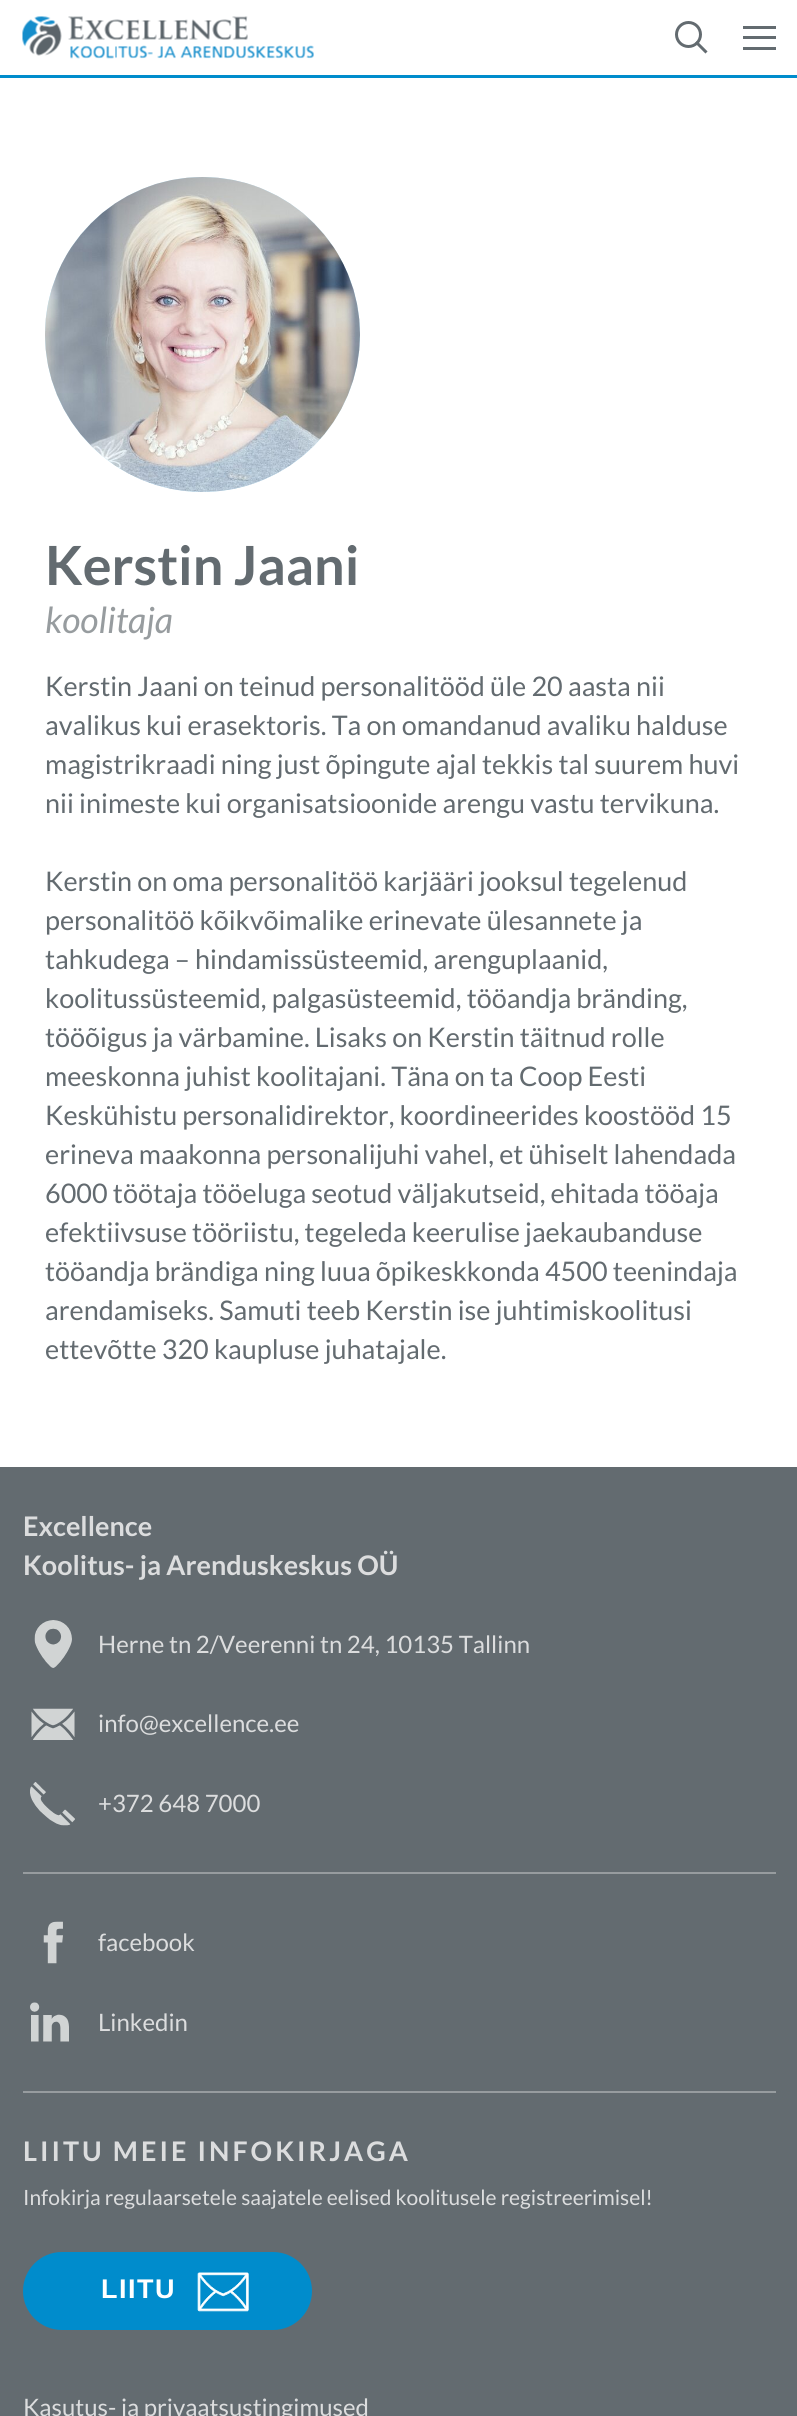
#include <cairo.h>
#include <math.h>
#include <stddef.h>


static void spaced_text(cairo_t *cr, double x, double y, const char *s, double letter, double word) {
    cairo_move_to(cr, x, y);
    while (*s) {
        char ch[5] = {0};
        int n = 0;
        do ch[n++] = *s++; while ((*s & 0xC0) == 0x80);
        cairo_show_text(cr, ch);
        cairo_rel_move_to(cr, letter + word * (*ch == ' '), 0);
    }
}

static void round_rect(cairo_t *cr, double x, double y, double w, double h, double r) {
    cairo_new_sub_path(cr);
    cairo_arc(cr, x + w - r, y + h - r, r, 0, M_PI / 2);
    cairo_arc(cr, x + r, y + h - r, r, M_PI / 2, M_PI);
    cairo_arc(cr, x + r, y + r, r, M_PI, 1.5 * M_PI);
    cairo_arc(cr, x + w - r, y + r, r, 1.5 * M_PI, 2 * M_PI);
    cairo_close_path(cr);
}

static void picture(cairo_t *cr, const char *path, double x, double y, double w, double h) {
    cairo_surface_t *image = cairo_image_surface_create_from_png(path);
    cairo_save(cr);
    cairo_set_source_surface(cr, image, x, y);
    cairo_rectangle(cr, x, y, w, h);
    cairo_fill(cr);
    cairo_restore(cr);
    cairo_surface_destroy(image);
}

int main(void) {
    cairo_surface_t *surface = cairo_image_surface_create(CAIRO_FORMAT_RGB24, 797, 2416);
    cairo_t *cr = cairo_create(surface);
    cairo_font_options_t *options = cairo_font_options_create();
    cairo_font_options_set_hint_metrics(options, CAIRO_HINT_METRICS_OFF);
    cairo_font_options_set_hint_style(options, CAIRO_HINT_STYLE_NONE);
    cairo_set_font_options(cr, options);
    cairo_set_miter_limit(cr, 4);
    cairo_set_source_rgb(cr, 1, 1, 1);
    cairo_paint(cr);
    cairo_set_source_rgb(cr, 0, 0.549, 0.8);
    cairo_rectangle(cr, 0, 75, 797, 3);
    cairo_fill(cr);
    picture(cr, "img1.png", 22, 16, 292, 43);
    cairo_arc(cr, 688.5, 34.5, 12, 0, 2 * M_PI);
    cairo_set_source_rgb(cr, 0.388, 0.42, 0.439);
    cairo_set_line_width(cr, 3);
    cairo_stroke(cr);
    cairo_new_path(cr);
    cairo_move_to(cr, 696, 42);
    cairo_line_to(cr, 706.5, 52.5);
    cairo_stroke(cr);
    cairo_rectangle(cr, 743, 26, 33, 3);
    cairo_fill(cr);
    cairo_rectangle(cr, 743, 47, 33, 3);
    cairo_fill(cr);
    cairo_rectangle(cr, 743, 36, 33, 3);
    cairo_fill(cr);
    cairo_set_source_rgb(cr, 0.769, 0.894, 0.957);
    cairo_arc(cr, 202.5, 334.5, 157.5, 0, 2 * M_PI);
    cairo_fill(cr);
    picture(cr, "img2.png", 45, 177, 315, 315);
    cairo_select_font_face(cr, "Lato", CAIRO_FONT_SLANT_NORMAL, CAIRO_FONT_WEIGHT_BOLD);
    cairo_set_font_size(cr, 54);
    cairo_set_source_rgb(cr, 0.388, 0.42, 0.439);
    cairo_move_to(cr, 45, 585);
    cairo_show_text(cr, "Kerstin Jaani");
    cairo_select_font_face(cr, "Lato", CAIRO_FONT_SLANT_ITALIC, CAIRO_FONT_WEIGHT_NORMAL);
    cairo_set_font_size(cr, 36);
    cairo_set_source_rgb(cr, 0.592, 0.612, 0.624);
    cairo_move_to(cr, 45, 633);
    cairo_show_text(cr, "koolitaja");
    cairo_select_font_face(cr, "Lato", CAIRO_FONT_SLANT_NORMAL, CAIRO_FONT_WEIGHT_NORMAL);
    cairo_set_font_size(cr, 27);
    cairo_set_source_rgb(cr, 0.388, 0.42, 0.439);
    cairo_move_to(cr, 45, 696);
    cairo_show_text(cr, "Kerstin Jaani on teinud personalitööd üle 20 aasta nii");
    cairo_move_to(cr, 45, 735);
    cairo_show_text(cr, "avalikus kui erasektoris. Ta on omandanud avaliku halduse");
    cairo_move_to(cr, 45, 774);
    cairo_show_text(cr, "magistrikraadi ning just õpingute ajal tekkis tal suurem huvi");
    cairo_move_to(cr, 45, 813);
    cairo_show_text(cr, "nii inimeste kui organisatsioonide arengu vastu tervikuna.");
    cairo_move_to(cr, 45, 891);
    cairo_show_text(cr, "Kerstin on oma personalitöö karjääri jooksul tegelenud");
    cairo_move_to(cr, 45, 930);
    cairo_show_text(cr, "personalitöö kõikvõimalike erinevate ülesannete ja");
    cairo_move_to(cr, 45, 969);
    cairo_show_text(cr, "tahkudega – hindamissüsteemid, arenguplaanid,");
    cairo_move_to(cr, 45, 1008);
    cairo_show_text(cr, "koolitussüsteemid, palgasüsteemid, tööandja bränding,");
    cairo_move_to(cr, 45, 1047);
    cairo_show_text(cr, "tööõigus ja värbamine. Lisaks on Kerstin täitnud rolle");
    cairo_move_to(cr, 45, 1086);
    cairo_show_text(cr, "meeskonna juhist koolitajani. Täna on ta Coop Eesti");
    cairo_move_to(cr, 45, 1125);
    cairo_show_text(cr, "Keskühistu personalidirektor, koordineerides koostööd 15");
    cairo_move_to(cr, 45, 1164);
    cairo_show_text(cr, "erineva maakonna personalijuhi vahel, et ühiselt lahendada");
    cairo_move_to(cr, 45, 1203);
    cairo_show_text(cr, "6000 töötaja tööeluga seotud väljakutseid, ehitada tööaja");
    cairo_move_to(cr, 45, 1242);
    cairo_show_text(cr, "efektiivsuse tööriistu, tegeleda keerulise jaekaubanduse");
    cairo_move_to(cr, 45, 1281);
    cairo_show_text(cr, "tööandja brändiga ning luua õpikeskkonda 4500 teenindaja");
    cairo_move_to(cr, 45, 1320);
    cairo_show_text(cr, "arendamiseks. Samuti teeb Kerstin ise juhtimiskoolitusi");
    cairo_move_to(cr, 45, 1359);
    cairo_show_text(cr, "ettevõtte 320 kaupluse juhatajale.");
    cairo_rectangle(cr, 0, 1467, 797, 949);
    cairo_fill(cr);
    cairo_select_font_face(cr, "Lato", CAIRO_FONT_SLANT_NORMAL, CAIRO_FONT_WEIGHT_BOLD);
    cairo_set_source_rgb(cr, 0.863, 0.867, 0.871);
    cairo_move_to(cr, 23, 1536);
    cairo_show_text(cr, "Excellence");
    cairo_move_to(cr, 23, 1575);
    cairo_show_text(cr, "Koolitus- ja Arenduskeskus OÜ");
    cairo_set_source_rgb(cr, 0.592, 0.612, 0.624);
    cairo_rectangle(cr, 23, 1872, 753, 2);
    cairo_fill(cr);
    picture(cr, "img3.png", 34, 1620, 38, 48);
    cairo_select_font_face(cr, "Lato", CAIRO_FONT_SLANT_NORMAL, CAIRO_FONT_WEIGHT_NORMAL);
    cairo_set_font_size(cr, 24);
    cairo_set_source_rgb(cr, 0.863, 0.867, 0.871);
    cairo_move_to(cr, 98, 1653);
    cairo_show_text(cr, "Herne tn 2/Veerenni tn 24, 10135 Tallinn");
    picture(cr, "img4.png", 31, 1708, 44, 32);
    cairo_move_to(cr, 98, 1732);
    cairo_show_text(cr, "info@excellence.ee");
    picture(cr, "img5.png", 30, 1782, 45, 44);
    cairo_move_to(cr, 98, 1812);
    cairo_show_text(cr, "+372 648 7000");
    picture(cr, "img6.png", 43, 1921, 20, 43);
    cairo_move_to(cr, 98, 1951);
    cairo_show_text(cr, "facebook");
    picture(cr, "img7.png", 30, 2002, 39, 40);
    cairo_move_to(cr, 98, 2031);
    cairo_show_text(cr, "Linkedin");
    cairo_set_source_rgb(cr, 0.592, 0.612, 0.624);
    cairo_rectangle(cr, 23, 2091, 753, 2);
    cairo_fill(cr);
    cairo_select_font_face(cr, "Lato", CAIRO_FONT_SLANT_NORMAL, CAIRO_FONT_WEIGHT_BOLD);
    cairo_set_font_size(cr, 27);
    cairo_set_source_rgb(cr, 0.863, 0.867, 0.871);
    spaced_text(cr, 23, 2161, "LIITU MEIE INFOKIRJAGA", 3, 0);
    cairo_select_font_face(cr, "Lato", CAIRO_FONT_SLANT_NORMAL, CAIRO_FONT_WEIGHT_NORMAL);
    cairo_set_font_size(cr, 21);
    cairo_move_to(cr, 23, 2205);
    cairo_show_text(cr, "Infokirja regulaarsetele saajatele eelised koolitusele registreerimisel!");
    cairo_set_source_rgb(cr, 0, 0.549, 0.8);
    round_rect(cr, 23, 2252, 289, 78, 39);
    cairo_fill(cr);
    cairo_select_font_face(cr, "Liberation Sans", CAIRO_FONT_SLANT_NORMAL, CAIRO_FONT_WEIGHT_BOLD);
    cairo_set_font_size(cr, 27);
    cairo_set_source_rgb(cr, 1, 1, 1);
    spaced_text(cr, 101, 2298, "LIITU", 1.5, 0);
    picture(cr, "img8.png", 197, 2272, 52, 40);
    cairo_select_font_face(cr, "Lato", CAIRO_FONT_SLANT_NORMAL, CAIRO_FONT_WEIGHT_NORMAL);
    cairo_set_font_size(cr, 24);
    cairo_set_source_rgb(cr, 0.863, 0.867, 0.871);
    cairo_move_to(cr, 23, 2416);
    cairo_show_text(cr, "Kasutus- ja privaatsustingimused");
    cairo_surface_write_to_png(surface, "page.png");
    cairo_font_options_destroy(options);
    cairo_destroy(cr);
    cairo_surface_destroy(surface);
    return 0;
}
